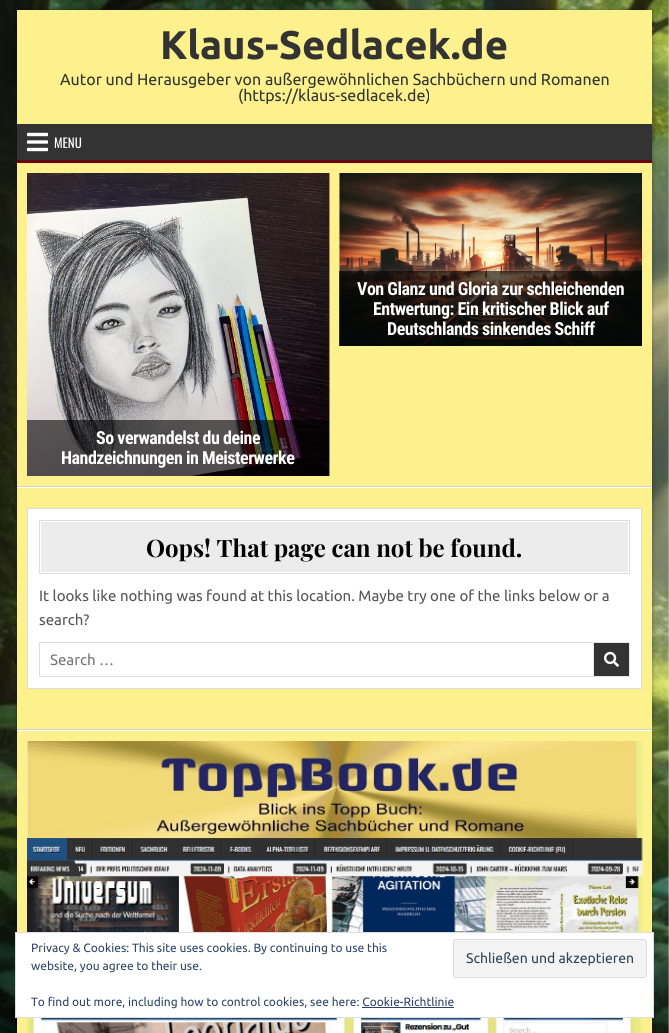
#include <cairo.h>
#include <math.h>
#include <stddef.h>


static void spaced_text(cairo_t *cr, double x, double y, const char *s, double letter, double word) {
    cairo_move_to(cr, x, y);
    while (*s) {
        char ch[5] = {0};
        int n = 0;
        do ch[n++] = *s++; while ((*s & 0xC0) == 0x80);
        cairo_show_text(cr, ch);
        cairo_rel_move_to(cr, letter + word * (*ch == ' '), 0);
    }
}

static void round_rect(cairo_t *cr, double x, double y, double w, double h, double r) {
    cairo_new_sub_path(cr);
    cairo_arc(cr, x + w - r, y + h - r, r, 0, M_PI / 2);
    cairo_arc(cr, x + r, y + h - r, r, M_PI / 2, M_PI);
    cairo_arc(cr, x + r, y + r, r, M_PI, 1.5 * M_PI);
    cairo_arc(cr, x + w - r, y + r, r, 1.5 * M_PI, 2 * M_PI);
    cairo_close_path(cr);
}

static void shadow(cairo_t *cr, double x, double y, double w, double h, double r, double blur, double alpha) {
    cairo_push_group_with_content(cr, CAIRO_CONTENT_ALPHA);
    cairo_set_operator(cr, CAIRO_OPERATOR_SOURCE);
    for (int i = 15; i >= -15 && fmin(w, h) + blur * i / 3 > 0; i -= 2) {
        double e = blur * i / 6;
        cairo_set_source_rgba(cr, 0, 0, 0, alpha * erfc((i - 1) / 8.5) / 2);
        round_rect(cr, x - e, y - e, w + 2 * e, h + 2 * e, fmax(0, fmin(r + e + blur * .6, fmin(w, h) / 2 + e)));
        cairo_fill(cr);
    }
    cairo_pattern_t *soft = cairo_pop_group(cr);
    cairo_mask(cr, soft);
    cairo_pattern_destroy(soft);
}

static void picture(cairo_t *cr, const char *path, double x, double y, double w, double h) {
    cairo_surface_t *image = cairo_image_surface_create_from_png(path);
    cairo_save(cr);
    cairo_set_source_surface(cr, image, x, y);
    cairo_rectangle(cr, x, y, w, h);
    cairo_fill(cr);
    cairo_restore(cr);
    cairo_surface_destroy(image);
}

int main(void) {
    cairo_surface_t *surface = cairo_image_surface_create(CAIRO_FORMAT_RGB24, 669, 1033);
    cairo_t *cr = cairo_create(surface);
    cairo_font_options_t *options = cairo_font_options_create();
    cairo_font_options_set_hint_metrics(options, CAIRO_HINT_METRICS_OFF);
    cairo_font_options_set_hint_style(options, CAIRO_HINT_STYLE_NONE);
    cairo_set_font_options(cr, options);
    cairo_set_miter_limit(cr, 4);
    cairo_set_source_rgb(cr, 0.902, 0.902, 0.902);
    cairo_paint(cr);
    picture(cr, "img1.png", 0, 0, 669, 1033);
    cairo_set_source_rgb(cr, 0, 0, 0);
    shadow(cr, 17, 10, 635, 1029, 0, 2, 0.35);
    cairo_set_source_rgb(cr, 0.988, 0.945, 0.553);
    cairo_rectangle(cr, 17, 10, 635, 114);
    cairo_fill(cr);
    cairo_select_font_face(cr, "Ubuntu", CAIRO_FONT_SLANT_NORMAL, CAIRO_FONT_WEIGHT_BOLD);
    cairo_set_font_size(cr, 40);
    cairo_set_source_rgb(cr, 0.2, 0.2, 0.2);
    cairo_move_to(cr, 160, 59);
    cairo_show_text(cr, "Klaus-Sedlacek.de");
    cairo_select_font_face(cr, "Ubuntu", CAIRO_FONT_SLANT_NORMAL, CAIRO_FONT_WEIGHT_NORMAL);
    cairo_set_font_size(cr, 16);
    cairo_move_to(cr, 60, 85);
    cairo_show_text(cr, "Autor und Herausgeber von außergewöhnlichen Sachbüchern und Romanen");
    cairo_move_to(cr, 238, 101);
    cairo_show_text(cr, "(https://klaus-sedlacek.de)");
    cairo_rectangle(cr, 17, 124, 635, 36);
    cairo_fill(cr);
    cairo_set_source_rgb(cr, 0.404, 0.031, 0.043);
    cairo_rectangle(cr, 17, 160, 635, 3);
    cairo_fill(cr);
    picture(cr, "img2.png", 27, 132, 21, 20);
    cairo_select_font_face(cr, "Oswald", CAIRO_FONT_SLANT_NORMAL, CAIRO_FONT_WEIGHT_NORMAL);
    cairo_set_font_size(cr, 13);
    cairo_set_source_rgb(cr, 1, 1, 1);
    cairo_move_to(cr, 54, 148);
    cairo_show_text(cr, "MENU");
    cairo_set_source_rgb(cr, 0.988, 0.945, 0.553);
    cairo_rectangle(cr, 17, 163, 635, 323);
    cairo_fill(cr);
    cairo_set_source_rgb(cr, 0.988, 0.988, 0.988);
    cairo_rectangle(cr, 17, 487, 635, 1);
    cairo_fill(cr);
    cairo_set_source_rgb(cr, 0.824, 0.824, 0.824);
    cairo_rectangle(cr, 17, 486, 635, 1);
    cairo_fill(cr);
    picture(cr, "img3.png", 339, 173, 303, 173);
    cairo_set_source_rgba(cr, 0, 0, 0, 0.6);
    cairo_rectangle(cr, 339, 271, 303, 75);
    cairo_fill(cr);
    cairo_select_font_face(cr, "Roboto Condensed", CAIRO_FONT_SLANT_NORMAL, CAIRO_FONT_WEIGHT_BOLD);
    cairo_set_font_size(cr, 18);
    cairo_set_source_rgb(cr, 1, 1, 1);
    spaced_text(cr, 357, 295, "Von Glanz und Gloria zur schleichenden", -0.5, 0);
    spaced_text(cr, 373, 315, "Entwertung: Ein kritischer Blick auf", -0.5, 0);
    spaced_text(cr, 387, 335, "Deutschlands sinkendes Schiff", -0.5, 0);
    picture(cr, "img4.png", 27, 173, 303, 303);
    cairo_set_source_rgba(cr, 0, 0, 0, 0.6);
    cairo_rectangle(cr, 27, 420, 302, 56);
    cairo_fill(cr);
    cairo_set_source_rgb(cr, 1, 1, 1);
    spaced_text(cr, 96, 444, "So verwandelst du deine", -0.5, 0);
    spaced_text(cr, 61, 464, "Handzeichnungen in Meisterwerke", -0.5, 0);
    cairo_set_source_rgb(cr, 0.988, 0.945, 0.553);
    cairo_rectangle(cr, 17, 488, 635, 241);
    cairo_fill(cr);
    cairo_set_source_rgb(cr, 1, 1, 1);
    cairo_rectangle(cr, 27.5, 508.5, 614, 180);
    cairo_fill_preserve(cr);
    cairo_set_source_rgb(cr, 0.867, 0.867, 0.867);
    cairo_set_line_width(cr, 1);
    cairo_stroke(cr);
    cairo_set_source_rgb(cr, 0.925, 0.925, 0.925);
    cairo_rectangle(cr, 41, 522, 587, 50);
    cairo_fill(cr);
    cairo_rectangle(cr, 39.5, 520.5, 590, 53);
    cairo_set_source_rgb(cr, 0.867, 0.867, 0.867);
    cairo_stroke(cr);
    cairo_select_font_face(cr, "Playfair Display", CAIRO_FONT_SLANT_NORMAL, CAIRO_FONT_WEIGHT_BOLD);
    cairo_set_font_size(cr, 24);
    cairo_set_source_rgb(cr, 0, 0, 0);
    cairo_move_to(cr, 146, 557);
    cairo_show_text(cr, "Oops! That page can not be found.");
    cairo_select_font_face(cr, "Ubuntu", CAIRO_FONT_SLANT_NORMAL, CAIRO_FONT_WEIGHT_NORMAL);
    cairo_set_font_size(cr, 15);
    cairo_set_source_rgb(cr, 0.333, 0.333, 0.333);
    cairo_move_to(cr, 39, 601);
    cairo_show_text(cr, "It looks like nothing was found at this location. Maybe try one of the links below or a");
    cairo_move_to(cr, 39, 625);
    cairo_show_text(cr, "search?");
    cairo_rectangle(cr, 39.5, 642.5, 590, 34);
    cairo_set_source_rgb(cr, 0.867, 0.867, 0.867);
    cairo_stroke(cr);
    cairo_set_source_rgb(cr, 0.459, 0.459, 0.459);
    cairo_move_to(cr, 50, 665);
    cairo_show_text(cr, "Search …");
    cairo_set_source_rgb(cr, 0.2, 0.2, 0.2);
    cairo_rectangle(cr, 593.5, 642.5, 36, 34);
    cairo_fill_preserve(cr);
    cairo_set_source_rgb(cr, 0.902, 0.902, 0.902);
    cairo_stroke(cr);
    picture(cr, "img5.png", 604, 651, 15, 16);
    cairo_set_source_rgb(cr, 0.988, 0.945, 0.553);
    cairo_rectangle(cr, 17, 731, 635, 302);
    cairo_fill(cr);
    cairo_set_source_rgb(cr, 0.824, 0.824, 0.824);
    cairo_rectangle(cr, 17, 729, 635, 1);
    cairo_fill(cr);
    cairo_set_source_rgb(cr, 0.988, 0.988, 0.988);
    cairo_rectangle(cr, 17, 730, 635, 1);
    cairo_fill(cr);
    picture(cr, "img6.png", 27, 741, 616, 292);
    cairo_set_source_rgb(cr, 1, 1, 1);
    cairo_rectangle(cr, 15.5, 932.5, 638, 85);
    cairo_fill_preserve(cr);
    cairo_set_source_rgb(cr, 0.871, 0.871, 0.871);
    cairo_stroke(cr);
    cairo_set_font_size(cr, 12);
    cairo_set_source_rgb(cr, 0.18, 0.267, 0.404);
    cairo_move_to(cr, 31, 952);
    cairo_show_text(cr, "Privacy & Cookies: This site uses cookies. By continuing to use this");
    cairo_move_to(cr, 31, 970);
    cairo_show_text(cr, "website, you agree to their use.");
    cairo_set_source_rgb(cr, 0.953, 0.953, 0.953);
    round_rect(cr, 453.5, 939.5, 193, 38, 2.5);
    cairo_fill_preserve(cr);
    cairo_set_source_rgb(cr, 0.871, 0.871, 0.871);
    cairo_stroke(cr);
    cairo_set_font_size(cr, 14);
    cairo_set_source_rgb(cr, 0.18, 0.267, 0.325);
    cairo_move_to(cr, 466, 963);
    cairo_show_text(cr, "Schließen und akzeptieren");
    cairo_set_font_size(cr, 12);
    cairo_set_source_rgb(cr, 0.18, 0.267, 0.404);
    cairo_move_to(cr, 31, 1006);
    cairo_show_text(cr, "To find out more, including how to control cookies, see here: Cookie-Richtlinie");
    cairo_rectangle(cr, 362, 1007, 92, 1);
    cairo_fill(cr);
    cairo_surface_write_to_png(surface, "page.png");
    cairo_font_options_destroy(options);
    cairo_destroy(cr);
    cairo_surface_destroy(surface);
    return 0;
}
